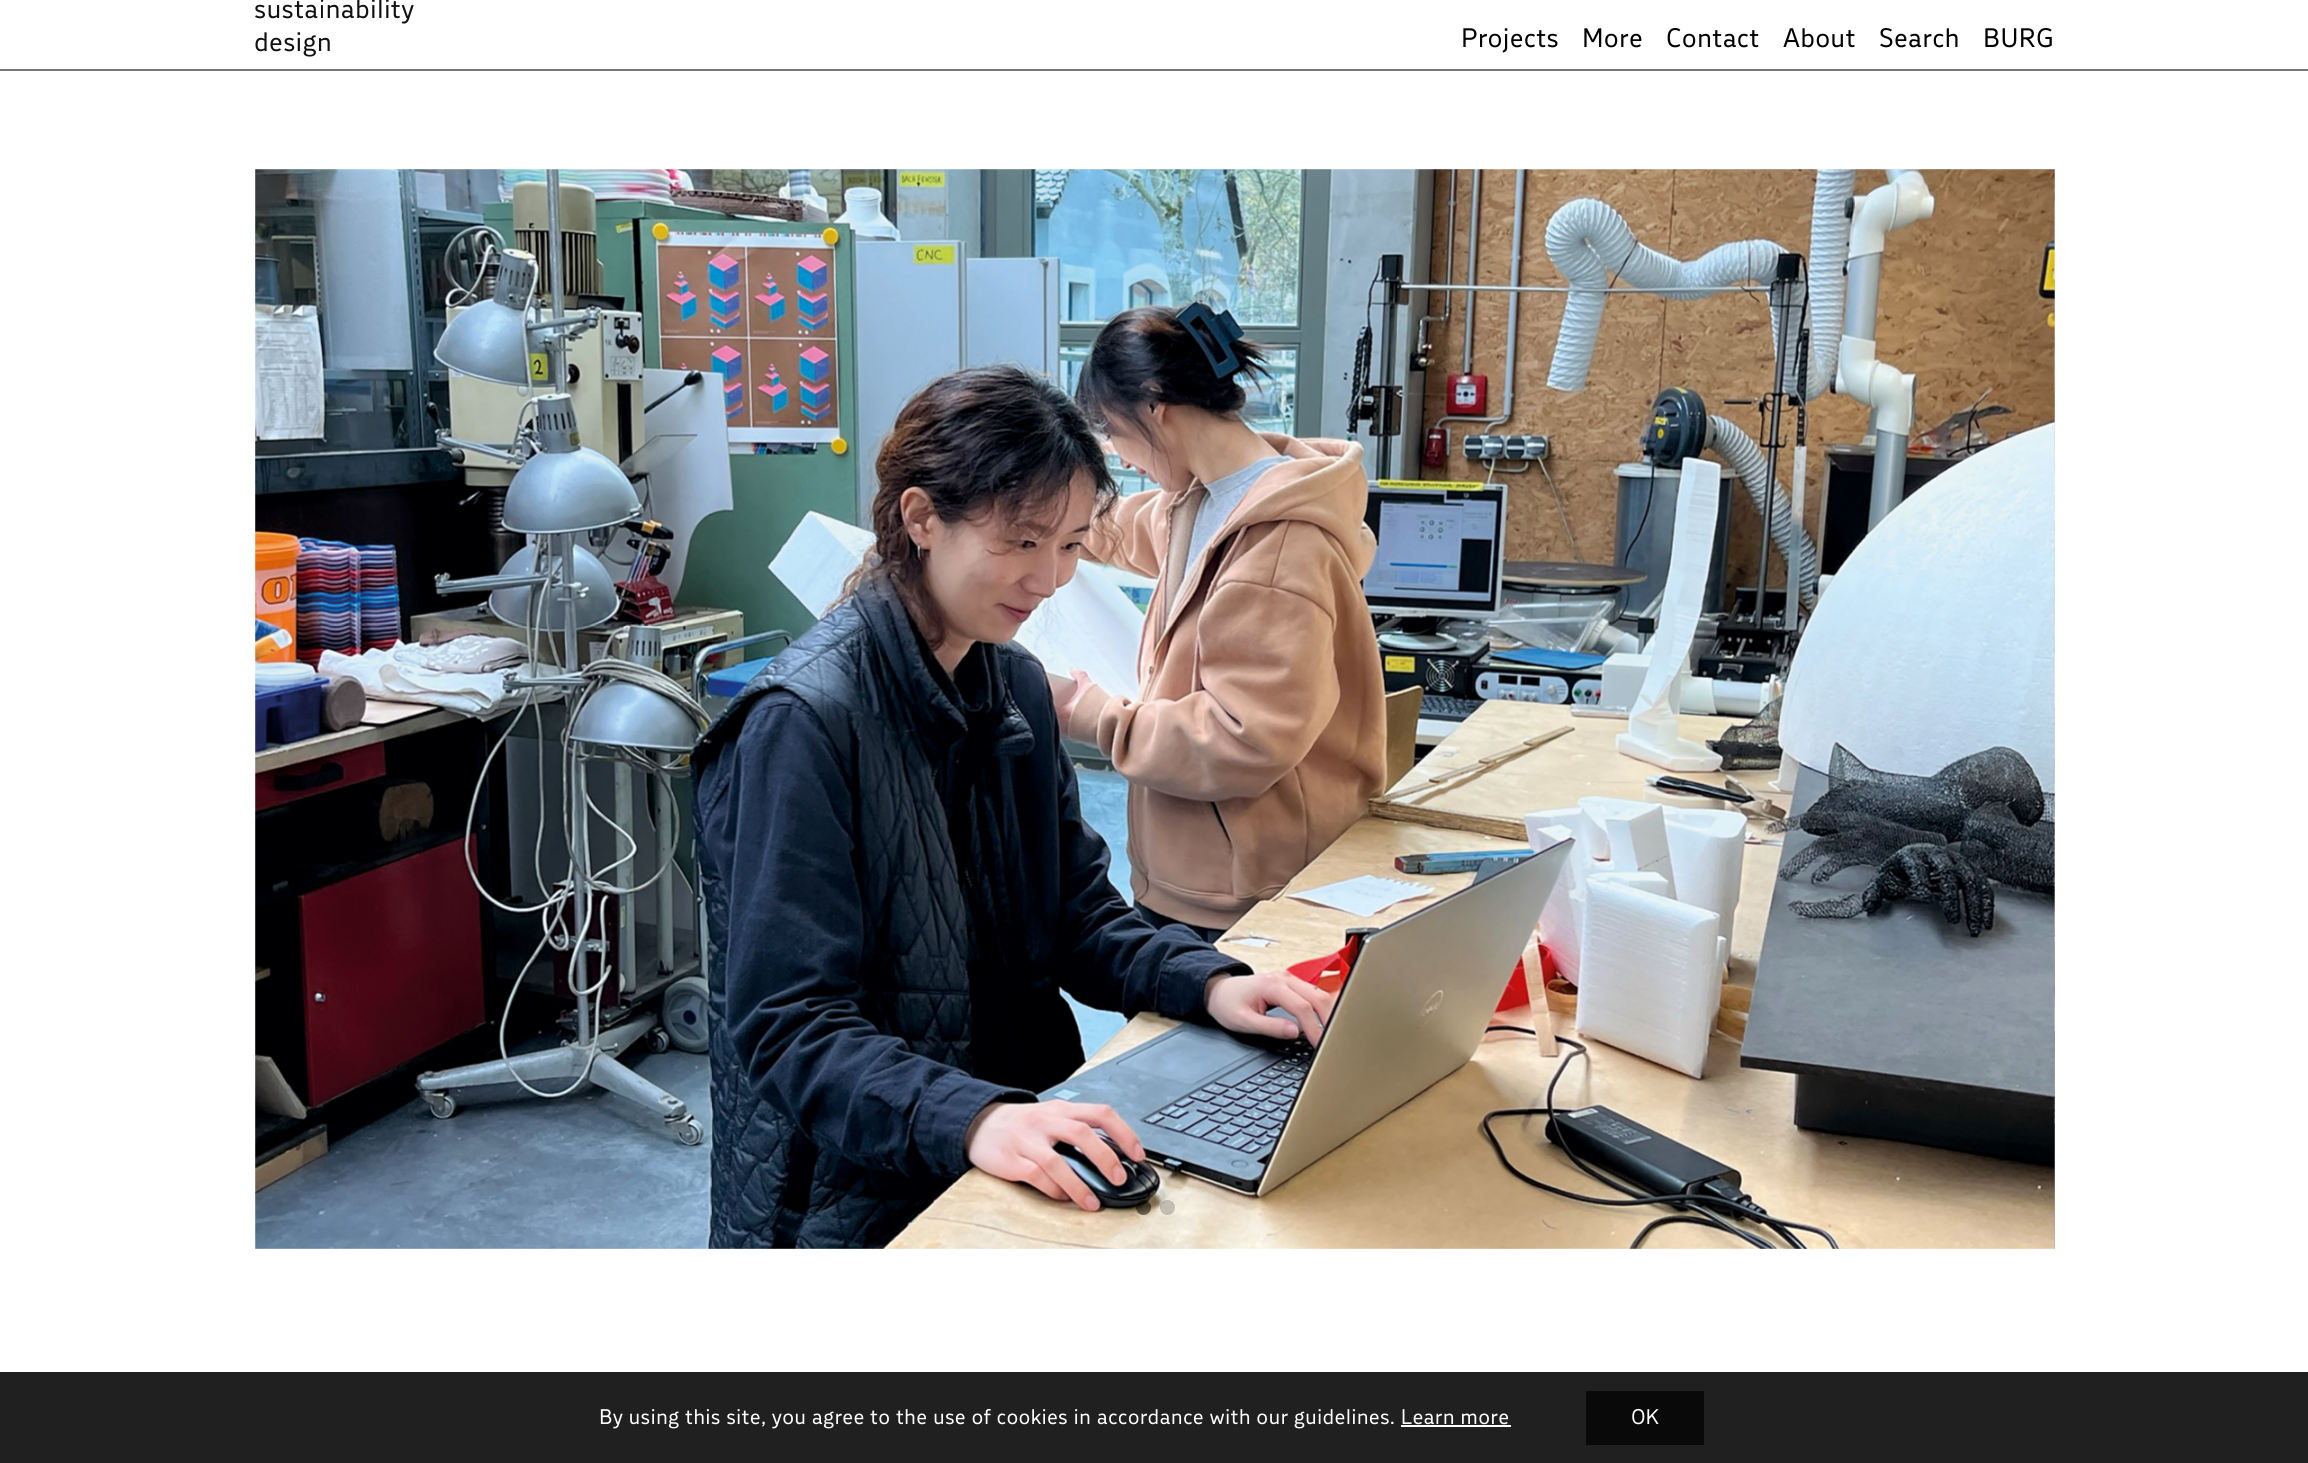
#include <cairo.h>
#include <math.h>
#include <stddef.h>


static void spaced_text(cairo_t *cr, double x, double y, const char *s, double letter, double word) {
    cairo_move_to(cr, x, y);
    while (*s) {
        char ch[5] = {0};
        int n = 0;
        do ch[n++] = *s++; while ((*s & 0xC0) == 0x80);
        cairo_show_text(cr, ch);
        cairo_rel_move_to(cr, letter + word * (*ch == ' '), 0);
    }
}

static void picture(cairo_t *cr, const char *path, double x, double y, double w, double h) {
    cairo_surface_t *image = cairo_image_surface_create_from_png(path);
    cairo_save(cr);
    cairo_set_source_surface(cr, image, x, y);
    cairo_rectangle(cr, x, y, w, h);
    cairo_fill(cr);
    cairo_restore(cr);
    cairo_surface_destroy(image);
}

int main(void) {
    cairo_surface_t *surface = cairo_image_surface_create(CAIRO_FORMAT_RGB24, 2308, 1463);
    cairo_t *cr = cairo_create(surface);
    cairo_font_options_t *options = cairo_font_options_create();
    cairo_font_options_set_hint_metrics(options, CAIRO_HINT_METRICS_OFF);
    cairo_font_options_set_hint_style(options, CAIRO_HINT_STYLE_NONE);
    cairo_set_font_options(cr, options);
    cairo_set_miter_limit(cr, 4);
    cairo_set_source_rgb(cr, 1, 1, 1);
    cairo_paint(cr);
    cairo_select_font_face(cr, "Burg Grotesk", CAIRO_FONT_SLANT_NORMAL, CAIRO_FONT_WEIGHT_NORMAL);
    cairo_set_font_size(cr, 26.5);
    cairo_set_source_rgb(cr, 0.067, 0.067, 0.067);
    spaced_text(cr, 254, 18, "sustainability", 0.25, 0);
    spaced_text(cr, 254, 51, "design", 0.25, 0);
    cairo_set_source_rgb(cr, 0, 0, 0);
    spaced_text(cr, 1461, 47, "Projects", 0.25, 0);
    spaced_text(cr, 1582, 47, "More", 0.25, 0);
    spaced_text(cr, 1666, 47, "Contact", 0.25, 0);
    spaced_text(cr, 1783, 47, "About", 0.25, 0);
    spaced_text(cr, 1879, 47, "Search", 0.25, 0);
    spaced_text(cr, 1983, 47, "BURG", 0.25, 0);
    cairo_set_source_rgb(cr, 0.463, 0.463, 0.463);
    cairo_rectangle(cr, 0, 69, 2308, 2);
    cairo_fill(cr);
    picture(cr, "img1.png", 255, 169, 1800, 1080);
    picture(cr, "img2.png", 2054, 170, 1, 1079);
    cairo_set_source_rgba(cr, 0, 0, 0, 0.5);
    cairo_arc(cr, 1143.5, 1207.5, 7.5, 0, 2 * M_PI);
    cairo_fill(cr);
    cairo_set_source_rgba(cr, 0, 0, 0, 0.2);
    cairo_arc(cr, 1167.5, 1207.5, 7.5, 0, 2 * M_PI);
    cairo_fill(cr);
    cairo_set_source_rgb(cr, 0.125, 0.125, 0.125);
    cairo_rectangle(cr, 0, 1372, 2308, 91);
    cairo_fill(cr);
    cairo_set_font_size(cr, 21);
    cairo_set_source_rgb(cr, 1, 1, 1);
    spaced_text(cr, 599, 1424, "By using this site, you agree to the use of cookies in accordance with our guidelines. Learn more", 0.2, 0);
    cairo_rectangle(cr, 1401, 1425, 110, 2);
    cairo_fill(cr);
    cairo_set_source_rgb(cr, 0.039, 0.039, 0.039);
    cairo_rectangle(cr, 1586, 1391, 118, 54);
    cairo_fill(cr);
    cairo_set_source_rgb(cr, 1, 1, 1);
    cairo_move_to(cr, 1631, 1424);
    cairo_show_text(cr, "OK");
    cairo_surface_write_to_png(surface, "page.png");
    cairo_font_options_destroy(options);
    cairo_destroy(cr);
    cairo_surface_destroy(surface);
    return 0;
}
